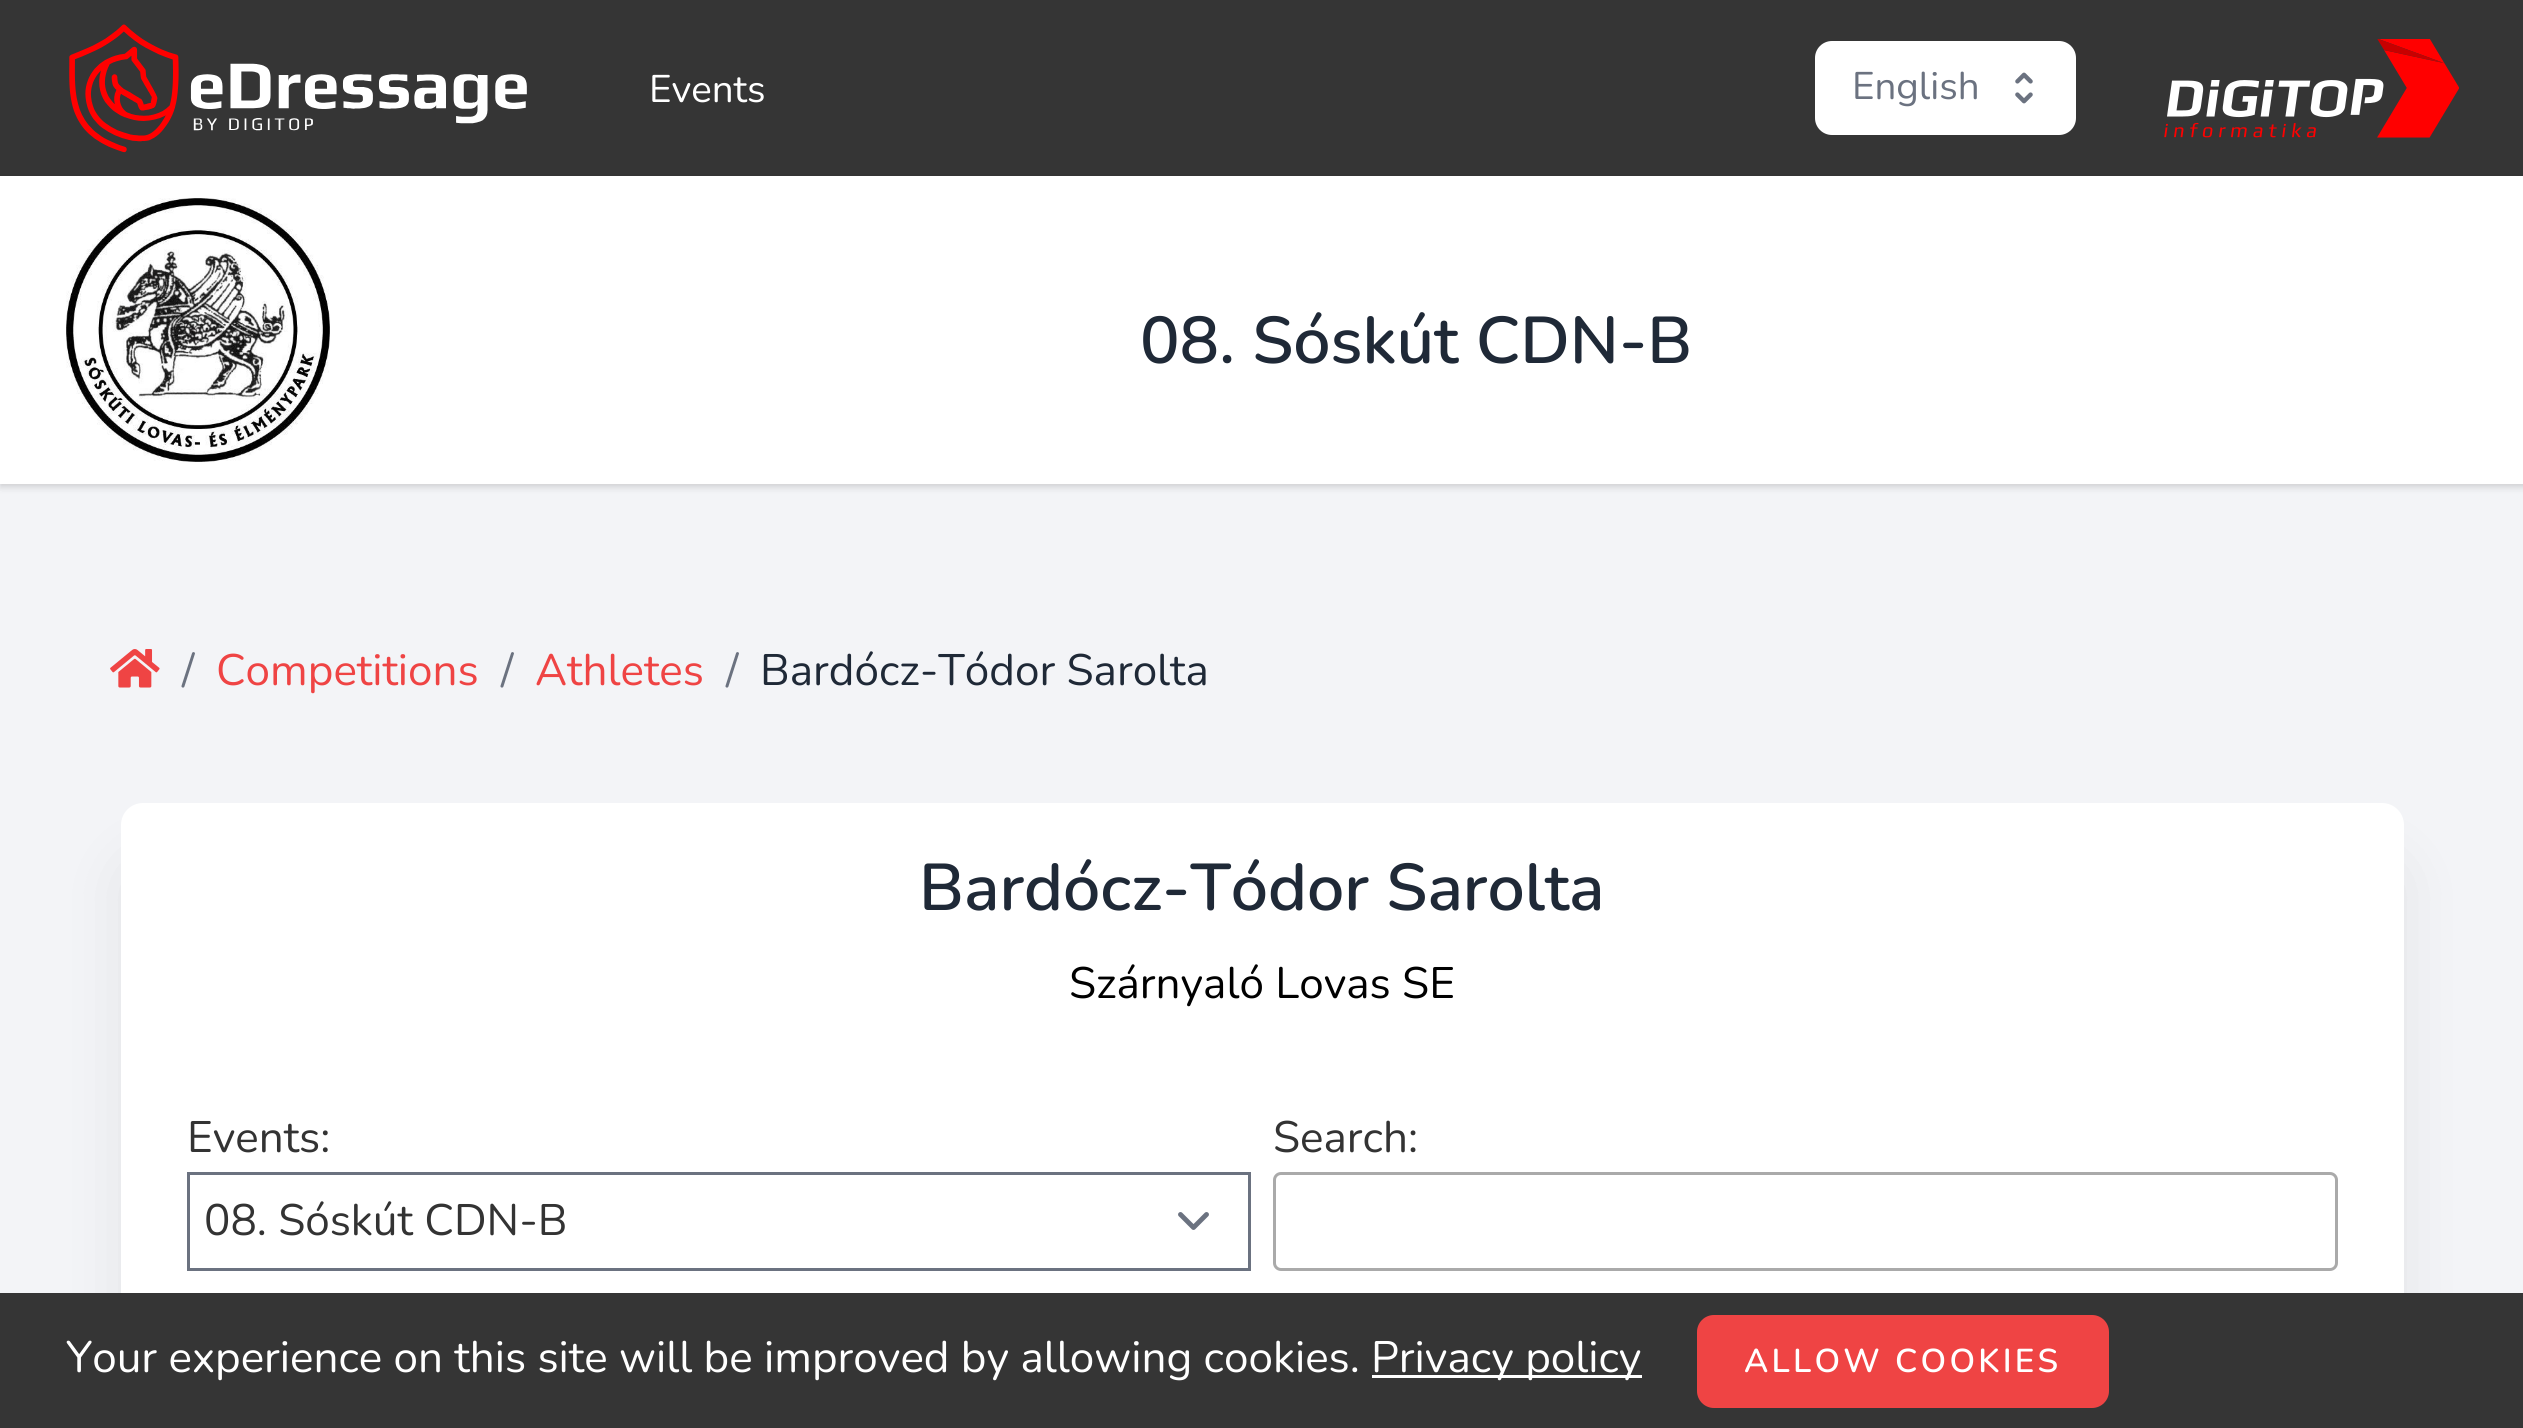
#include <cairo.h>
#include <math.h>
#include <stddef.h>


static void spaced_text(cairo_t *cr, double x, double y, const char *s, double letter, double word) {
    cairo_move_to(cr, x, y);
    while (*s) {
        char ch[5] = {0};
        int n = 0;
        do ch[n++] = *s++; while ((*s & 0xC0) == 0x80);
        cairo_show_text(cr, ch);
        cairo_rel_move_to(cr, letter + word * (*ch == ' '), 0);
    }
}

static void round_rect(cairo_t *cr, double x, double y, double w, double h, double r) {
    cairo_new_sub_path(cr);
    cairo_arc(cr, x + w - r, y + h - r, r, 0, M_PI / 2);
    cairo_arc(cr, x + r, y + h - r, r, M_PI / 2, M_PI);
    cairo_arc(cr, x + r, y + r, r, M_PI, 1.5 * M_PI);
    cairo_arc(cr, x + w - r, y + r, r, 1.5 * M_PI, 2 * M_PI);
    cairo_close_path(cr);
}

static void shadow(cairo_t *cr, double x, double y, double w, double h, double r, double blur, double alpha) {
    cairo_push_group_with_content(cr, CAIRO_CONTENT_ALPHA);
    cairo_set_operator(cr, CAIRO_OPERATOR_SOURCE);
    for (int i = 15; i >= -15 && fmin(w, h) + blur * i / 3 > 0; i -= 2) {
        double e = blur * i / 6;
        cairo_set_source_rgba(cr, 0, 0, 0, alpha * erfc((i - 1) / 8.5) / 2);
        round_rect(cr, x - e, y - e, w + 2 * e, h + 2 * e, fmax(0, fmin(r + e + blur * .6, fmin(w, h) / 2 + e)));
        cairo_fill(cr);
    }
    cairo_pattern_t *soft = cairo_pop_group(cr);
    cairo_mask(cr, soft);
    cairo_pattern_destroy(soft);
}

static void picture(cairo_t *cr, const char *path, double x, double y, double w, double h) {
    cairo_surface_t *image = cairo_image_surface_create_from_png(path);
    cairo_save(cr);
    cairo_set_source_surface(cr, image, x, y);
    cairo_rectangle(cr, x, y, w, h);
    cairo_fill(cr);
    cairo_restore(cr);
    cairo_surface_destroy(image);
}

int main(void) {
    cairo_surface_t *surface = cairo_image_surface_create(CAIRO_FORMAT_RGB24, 2523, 1428);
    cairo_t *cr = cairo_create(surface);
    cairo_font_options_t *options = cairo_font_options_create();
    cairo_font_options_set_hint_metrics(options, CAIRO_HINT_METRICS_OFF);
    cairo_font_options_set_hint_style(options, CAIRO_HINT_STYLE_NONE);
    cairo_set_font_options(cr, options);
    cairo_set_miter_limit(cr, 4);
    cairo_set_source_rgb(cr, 0.953, 0.957, 0.965);
    cairo_paint(cr);
    cairo_set_source_rgb(cr, 0.208, 0.208, 0.208);
    cairo_rectangle(cr, 0, 0, 2523, 176);
    cairo_fill(cr);
    picture(cr, "img1.png", 69, 24, 458, 129);
    cairo_select_font_face(cr, "Nunito", CAIRO_FONT_SLANT_NORMAL, CAIRO_FONT_WEIGHT_NORMAL);
    cairo_set_font_size(cr, 38.5);
    cairo_set_source_rgb(cr, 1, 1, 1);
    cairo_move_to(cr, 649, 102);
    cairo_show_text(cr, "Events");
    round_rect(cr, 1815, 41, 261, 94, 17);
    cairo_fill(cr);
    cairo_set_source_rgb(cr, 0.42, 0.447, 0.502);
    cairo_move_to(cr, 1852, 99);
    cairo_show_text(cr, "English");
    picture(cr, "img2.png", 2015, 72, 18, 32);
    picture(cr, "img3.png", 2164, 39, 295, 99);
    cairo_set_source_rgb(cr, 0, 0, 0);
    shadow(cr, 0, 179, 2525, 308, 0, 3, 0.06);
    shadow(cr, 0, 179, 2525, 308, 0, 4, 0.1);
    cairo_set_source_rgb(cr, 1, 1, 1);
    cairo_rectangle(cr, 0, 176, 2523, 308);
    cairo_fill(cr);
    picture(cr, "img4.png", 66, 198, 264, 264);
    cairo_select_font_face(cr, "Nunito SemiBold", CAIRO_FONT_SLANT_NORMAL, CAIRO_FONT_WEIGHT_NORMAL);
    cairo_set_font_size(cr, 66);
    cairo_set_source_rgb(cr, 0.122, 0.161, 0.216);
    cairo_move_to(cr, 1140, 363);
    cairo_show_text(cr, "08. Sóskút CDN-B");
    picture(cr, "img5.png", 110, 649, 50, 39);
    cairo_select_font_face(cr, "Nunito", CAIRO_FONT_SLANT_NORMAL, CAIRO_FONT_WEIGHT_NORMAL);
    cairo_set_font_size(cr, 44);
    cairo_set_source_rgb(cr, 0.42, 0.447, 0.502);
    cairo_move_to(cr, 182, 685);
    cairo_show_text(cr, "/");
    cairo_set_source_rgb(cr, 0.937, 0.267, 0.267);
    cairo_move_to(cr, 216, 685);
    cairo_show_text(cr, "Competitions");
    cairo_set_source_rgb(cr, 0.42, 0.447, 0.502);
    cairo_move_to(cr, 501, 685);
    cairo_show_text(cr, "/");
    cairo_set_source_rgb(cr, 0.937, 0.267, 0.267);
    cairo_move_to(cr, 535, 685);
    cairo_show_text(cr, "Athletes");
    cairo_set_source_rgb(cr, 0.42, 0.447, 0.502);
    cairo_move_to(cr, 726, 685);
    cairo_show_text(cr, "/");
    cairo_set_source_rgb(cr, 0.122, 0.161, 0.216);
    cairo_move_to(cr, 760, 685);
    cairo_show_text(cr, "Bardócz-Tódor Sarolta");
    cairo_set_source_rgb(cr, 0, 0, 0);
    shadow(cr, 135, 872, 2255, 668, 8, 34.5, 0.1);
    cairo_set_source_rgb(cr, 1, 1, 1);
    round_rect(cr, 121, 803, 2283, 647, 22);
    cairo_fill(cr);
    cairo_select_font_face(cr, "Nunito SemiBold", CAIRO_FONT_SLANT_NORMAL, CAIRO_FONT_WEIGHT_NORMAL);
    cairo_set_font_size(cr, 66);
    cairo_set_source_rgb(cr, 0.122, 0.161, 0.216);
    cairo_move_to(cr, 919, 910);
    cairo_show_text(cr, "Bardócz-Tódor Sarolta");
    cairo_select_font_face(cr, "Nunito", CAIRO_FONT_SLANT_NORMAL, CAIRO_FONT_WEIGHT_NORMAL);
    cairo_set_font_size(cr, 44);
    cairo_set_source_rgb(cr, 0, 0, 0);
    cairo_move_to(cr, 1069, 998);
    cairo_show_text(cr, "Szárnyaló Lovas SE");
    cairo_set_source_rgb(cr, 0.2, 0.2, 0.2);
    cairo_move_to(cr, 187, 1152);
    cairo_show_text(cr, "Events:");
    cairo_new_path(cr);
    cairo_move_to(cr, 1180.5, 1214.5);
    cairo_line_to(cr, 1193.5, 1227.5);
    cairo_line_to(cr, 1206.5, 1214.5);
    cairo_set_source_rgb(cr, 0.42, 0.447, 0.502);
    cairo_set_line_width(cr, 4.9);
    cairo_set_line_cap(cr, CAIRO_LINE_CAP_ROUND);
    cairo_set_line_join(cr, CAIRO_LINE_JOIN_ROUND);
    cairo_stroke(cr);
    cairo_rectangle(cr, 188.5, 1173.5, 1061, 96);
    cairo_set_line_width(cr, 3);
    cairo_set_line_cap(cr, CAIRO_LINE_CAP_BUTT);
    cairo_set_line_join(cr, CAIRO_LINE_JOIN_MITER);
    cairo_stroke(cr);
    cairo_set_source_rgb(cr, 0.2, 0.2, 0.2);
    cairo_move_to(cr, 204, 1235);
    cairo_show_text(cr, "08. Sóskút CDN-B");
    cairo_move_to(cr, 1273, 1152);
    cairo_show_text(cr, "Search:");
    round_rect(cr, 1274.5, 1173.5, 1062, 96, 6.5);
    cairo_set_source_rgb(cr, 0.667, 0.667, 0.667);
    cairo_stroke(cr);
    cairo_set_source_rgb(cr, 0.208, 0.208, 0.208);
    cairo_rectangle(cr, 0, 1293, 2523, 135);
    cairo_fill(cr);
    cairo_set_source_rgb(cr, 1, 1, 1);
    cairo_move_to(cr, 66, 1372);
    cairo_show_text(cr, "Your experience on this site will be improved by allowing cookies.");
    cairo_rectangle(cr, 1372, 1375, 270, 3);
    cairo_fill(cr);
    cairo_move_to(cr, 1371, 1372);
    cairo_show_text(cr, "Privacy policy");
    cairo_set_source_rgb(cr, 0.937, 0.267, 0.267);
    round_rect(cr, 1697, 1315, 412, 93, 17);
    cairo_fill(cr);
    cairo_select_font_face(cr, "Nunito SemiBold", CAIRO_FONT_SLANT_NORMAL, CAIRO_FONT_WEIGHT_NORMAL);
    cairo_set_font_size(cr, 33);
    cairo_set_source_rgb(cr, 1, 1, 1);
    spaced_text(cr, 1744, 1372, "ALLOW COOKIES", 3.25, 0);
    cairo_surface_write_to_png(surface, "page.png");
    cairo_font_options_destroy(options);
    cairo_destroy(cr);
    cairo_surface_destroy(surface);
    return 0;
}
